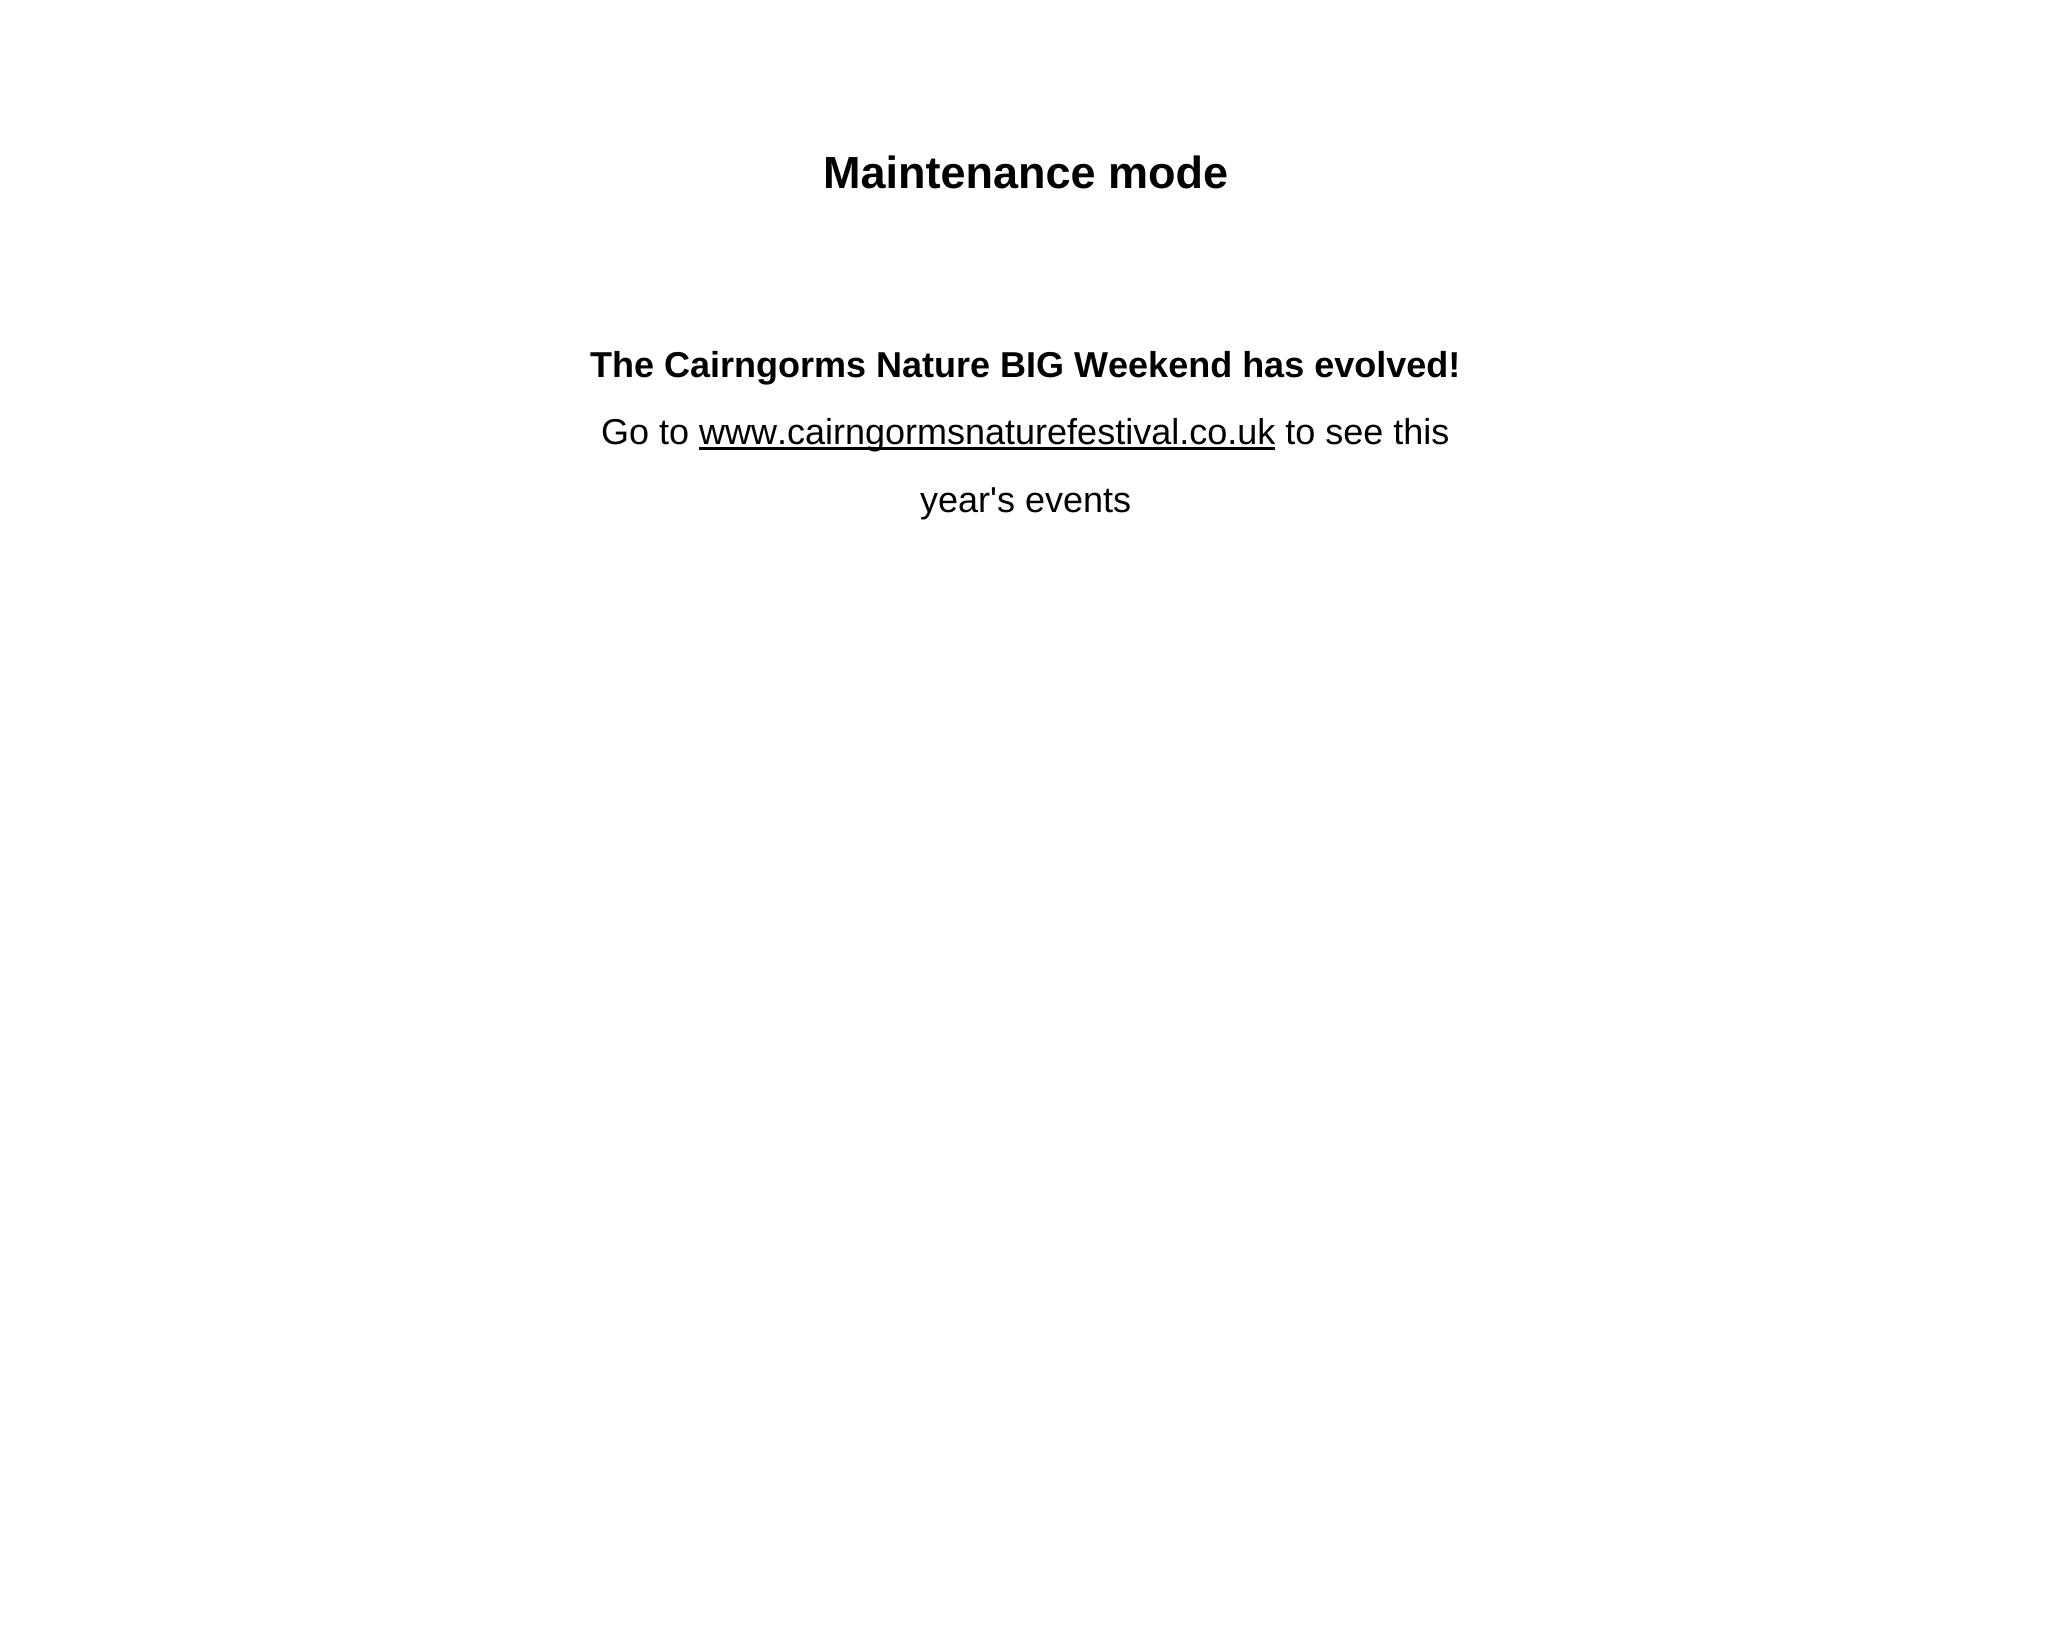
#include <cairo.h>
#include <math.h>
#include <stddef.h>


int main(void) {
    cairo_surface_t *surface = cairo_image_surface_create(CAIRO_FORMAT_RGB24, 2050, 1637);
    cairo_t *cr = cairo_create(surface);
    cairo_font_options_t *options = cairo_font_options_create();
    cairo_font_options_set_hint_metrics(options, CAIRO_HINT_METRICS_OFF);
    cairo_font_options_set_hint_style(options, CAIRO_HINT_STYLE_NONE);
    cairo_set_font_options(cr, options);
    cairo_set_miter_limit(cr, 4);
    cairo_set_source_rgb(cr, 1, 1, 1);
    cairo_paint(cr);
    cairo_select_font_face(cr, "Liberation Sans", CAIRO_FONT_SLANT_NORMAL, CAIRO_FONT_WEIGHT_BOLD);
    cairo_set_font_size(cr, 45);
    cairo_set_source_rgb(cr, 0, 0, 0);
    cairo_move_to(cr, 823, 188);
    cairo_show_text(cr, "Maintenance mode");
    cairo_set_font_size(cr, 36);
    cairo_move_to(cr, 590, 377);
    cairo_show_text(cr, "The Cairngorms Nature BIG Weekend has evolved!");
    cairo_select_font_face(cr, "Liberation Sans", CAIRO_FONT_SLANT_NORMAL, CAIRO_FONT_WEIGHT_NORMAL);
    cairo_move_to(cr, 601, 444);
    cairo_show_text(cr, "Go to");
    cairo_rectangle(cr, 699, 447, 576, 3);
    cairo_fill(cr);
    cairo_move_to(cr, 699, 444);
    cairo_show_text(cr, "www.cairngormsnaturefestival.co.uk to see this");
    cairo_move_to(cr, 920, 512);
    cairo_show_text(cr, "year's events");
    cairo_surface_write_to_png(surface, "page.png");
    cairo_font_options_destroy(options);
    cairo_destroy(cr);
    cairo_surface_destroy(surface);
    return 0;
}
